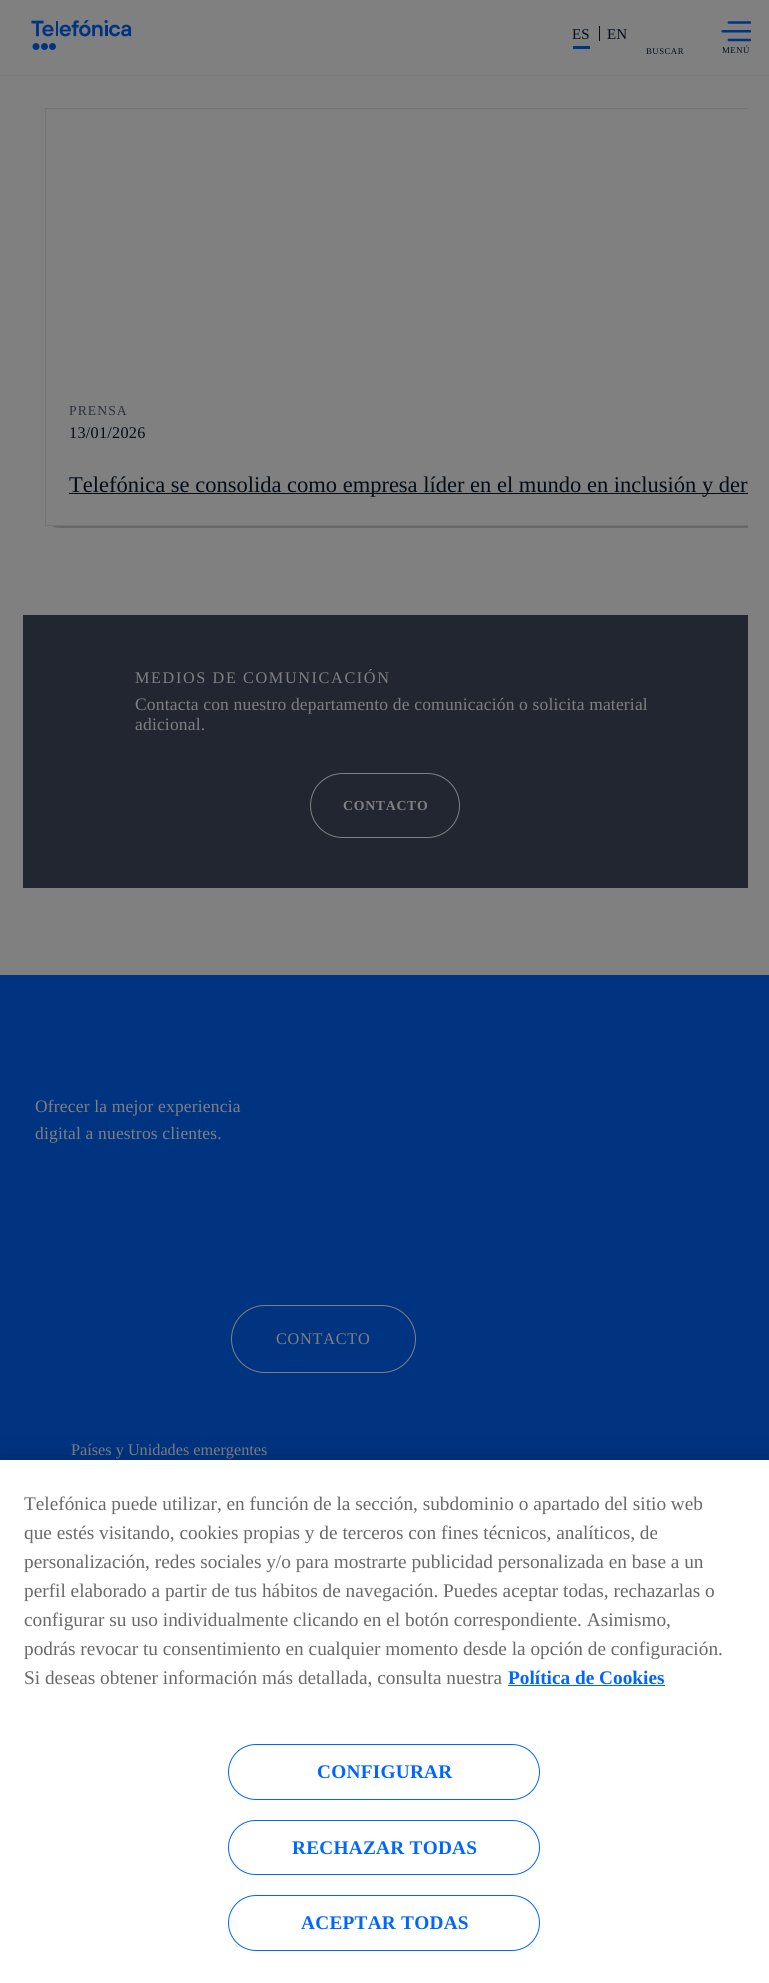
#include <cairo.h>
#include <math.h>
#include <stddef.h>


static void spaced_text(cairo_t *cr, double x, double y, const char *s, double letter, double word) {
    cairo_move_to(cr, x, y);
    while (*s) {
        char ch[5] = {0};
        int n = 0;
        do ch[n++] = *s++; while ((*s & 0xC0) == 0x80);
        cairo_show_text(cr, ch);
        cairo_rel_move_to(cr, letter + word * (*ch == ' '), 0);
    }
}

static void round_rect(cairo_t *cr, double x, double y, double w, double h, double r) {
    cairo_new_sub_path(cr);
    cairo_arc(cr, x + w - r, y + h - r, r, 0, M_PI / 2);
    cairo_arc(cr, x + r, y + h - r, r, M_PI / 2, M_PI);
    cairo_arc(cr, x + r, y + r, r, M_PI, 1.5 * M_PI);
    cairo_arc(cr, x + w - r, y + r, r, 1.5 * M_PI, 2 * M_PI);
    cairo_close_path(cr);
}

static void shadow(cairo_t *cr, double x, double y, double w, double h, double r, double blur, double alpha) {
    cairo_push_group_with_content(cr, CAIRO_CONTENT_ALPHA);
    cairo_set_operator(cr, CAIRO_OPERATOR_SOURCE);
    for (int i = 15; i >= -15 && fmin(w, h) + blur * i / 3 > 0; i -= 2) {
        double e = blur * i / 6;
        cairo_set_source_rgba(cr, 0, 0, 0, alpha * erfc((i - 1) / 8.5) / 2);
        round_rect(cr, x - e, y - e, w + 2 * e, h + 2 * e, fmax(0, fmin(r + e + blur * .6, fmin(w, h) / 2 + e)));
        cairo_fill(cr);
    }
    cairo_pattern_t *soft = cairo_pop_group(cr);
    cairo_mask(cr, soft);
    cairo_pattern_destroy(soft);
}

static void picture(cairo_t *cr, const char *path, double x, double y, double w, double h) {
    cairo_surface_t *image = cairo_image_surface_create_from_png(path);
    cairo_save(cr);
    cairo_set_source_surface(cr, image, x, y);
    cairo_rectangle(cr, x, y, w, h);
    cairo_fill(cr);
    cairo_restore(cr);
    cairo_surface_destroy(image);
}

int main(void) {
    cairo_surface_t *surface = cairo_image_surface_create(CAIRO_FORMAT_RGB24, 769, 1983);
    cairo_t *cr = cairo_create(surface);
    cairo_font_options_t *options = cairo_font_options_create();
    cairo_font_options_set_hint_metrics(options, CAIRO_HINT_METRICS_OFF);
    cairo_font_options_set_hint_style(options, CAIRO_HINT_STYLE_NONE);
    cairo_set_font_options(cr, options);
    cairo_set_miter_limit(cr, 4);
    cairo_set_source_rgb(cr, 0.502, 0.502, 0.502);
    cairo_paint(cr);
    cairo_set_source_rgb(cr, 0.475, 0.478, 0.502);
    cairo_rectangle(cr, 0, 75, 769, 1);
    cairo_fill(cr);
    picture(cr, "img1.png", 31, 20, 101, 30);
    cairo_set_source_rgb(cr, 0, 0.2, 0.502);
    cairo_rectangle(cr, 573, 46, 17, 3);
    cairo_fill(cr);
    cairo_select_font_face(cr, "Liberation Serif", CAIRO_FONT_SLANT_NORMAL, CAIRO_FONT_WEIGHT_NORMAL);
    cairo_set_font_size(cr, 15);
    cairo_set_source_rgb(cr, 0.008, 0.051, 0.102);
    cairo_move_to(cr, 572, 39);
    cairo_show_text(cr, "ES");
    cairo_rectangle(cr, 599, 26, 1, 15);
    cairo_fill(cr);
    cairo_move_to(cr, 607, 39);
    cairo_show_text(cr, "EN");
    cairo_set_font_size(cr, 8.75);
    spaced_text(cr, 646, 54, "BUSCAR", 0.5, 0);
    picture(cr, "img2.png", 721, 21, 30, 21);
    spaced_text(cr, 722, 53, "MENÚ", 0.5, 0);
    cairo_save(cr);
    cairo_rectangle(cr, 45, 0, 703, 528);
    cairo_clip(cr);
    cairo_rectangle(cr, 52, 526, 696, 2);
    cairo_clip(cr);
    cairo_set_source_rgb(cr, 0, 0, 0);
    shadow(cr, 45, 109, 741, 419, 15, 0.5, 0.2);
    cairo_restore(cr);
    cairo_save(cr);
    cairo_rectangle(cr, 45, 0, 703, 528);
    cairo_clip(cr);
    cairo_new_path(cr);
    cairo_move_to(cr, 45.5, 108.5);
    cairo_line_to(cr, 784.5, 108.5);
    cairo_line_to(cr, 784.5, 511);
    cairo_curve_to(cr, 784.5, 519, 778, 525.5, 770, 525.5);
    cairo_line_to(cr, 45.5, 525.5);
    cairo_close_path(cr);
    cairo_set_source_rgb(cr, 0.447, 0.451, 0.467);
    cairo_set_line_width(cr, 1);
    cairo_stroke(cr);
    cairo_restore(cr);
    cairo_set_font_size(cr, 13.75);
    cairo_set_source_rgb(cr, 0.173, 0.192, 0.239);
    spaced_text(cr, 69, 415, "PRENSA", 1, 0);
    cairo_set_font_size(cr, 16.25);
    cairo_set_source_rgb(cr, 0.008, 0.051, 0.102);
    spaced_text(cr, 69, 438, "13/01/2026", 0.25, 0);
    cairo_rectangle(cr, 69, 493, 679, 1);
    cairo_fill(cr);
    cairo_set_font_size(cr, 22.5);
    cairo_move_to(cr, 69, 492);
    cairo_show_text(cr, "Telefónica se consolida como empresa líder en el mundo en inclusión y der");
    cairo_set_source_rgb(cr, 0.129, 0.149, 0.192);
    cairo_rectangle(cr, 23, 615, 725, 273);
    cairo_fill(cr);
    cairo_set_font_size(cr, 16.25);
    cairo_set_source_rgb(cr, 0.502, 0.502, 0.502);
    spaced_text(cr, 135, 683, "MEDIOS DE COMUNICACIÓN", 1.6, 0);
    cairo_set_font_size(cr, 17.5);
    spaced_text(cr, 135, 710, "Contacta con nuestro departamento de comunicación o solicita material", 0.18, 0);
    spaced_text(cr, 135, 730, "adicional.", 0.18, 0);
    round_rect(cr, 310.5, 773.5, 149, 64, 32);
    cairo_set_line_width(cr, 1);
    cairo_stroke(cr);
    cairo_select_font_face(cr, "Liberation Serif", CAIRO_FONT_SLANT_NORMAL, CAIRO_FONT_WEIGHT_BOLD);
    cairo_set_font_size(cr, 13.75);
    spaced_text(cr, 343, 810, "CONTACTO", 0.75, 0);
    cairo_set_source_rgb(cr, 0, 0.2, 0.502);
    cairo_rectangle(cr, 0, 975, 769, 485);
    cairo_fill(cr);
    cairo_select_font_face(cr, "Liberation Serif", CAIRO_FONT_SLANT_NORMAL, CAIRO_FONT_WEIGHT_NORMAL);
    cairo_set_font_size(cr, 17.5);
    cairo_set_source_rgb(cr, 0.502, 0.502, 0.502);
    spaced_text(cr, 35, 1112, "Ofrecer la mejor experiencia", 0.18, 0);
    spaced_text(cr, 35, 1139, "digital a nuestros clientes.", 0.18, 0);
    round_rect(cr, 231.5, 1305.5, 184, 67, 33.5);
    cairo_stroke(cr);
    cairo_set_font_size(cr, 16.25);
    spaced_text(cr, 276, 1344, "CONTACTO", 0.75, 0);
    cairo_move_to(cr, 71, 1455);
    cairo_show_text(cr, "Países y Unidades emergentes");
    cairo_set_source_rgb(cr, 0, 0, 0);
    shadow(cr, 0, 1460, 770, 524, 0, 11, 0.2);
    cairo_set_source_rgb(cr, 1, 1, 1);
    cairo_rectangle(cr, 0, 1460, 769, 523);
    cairo_fill(cr);
    cairo_set_font_size(cr, 19.3);
    cairo_set_source_rgb(cr, 0.412, 0.412, 0.412);
    cairo_move_to(cr, 24, 1510);
    cairo_show_text(cr, "Telefónica puede utilizar, en función de la sección, subdominio o apartado del sitio web");
    cairo_move_to(cr, 24, 1539);
    cairo_show_text(cr, "que estés visitando, cookies propias y de terceros con fines técnicos, analíticos, de");
    cairo_move_to(cr, 24, 1568);
    cairo_show_text(cr, "personalización, redes sociales y/o para mostrarte publicidad personalizada en base a un");
    cairo_move_to(cr, 24, 1597);
    cairo_show_text(cr, "perfil elaborado a partir de tus hábitos de navegación. Puedes aceptar todas, rechazarlas o");
    cairo_move_to(cr, 24, 1626);
    cairo_show_text(cr, "configurar su uso individualmente clicando en el botón correspondiente. Asimismo,");
    cairo_move_to(cr, 24, 1655);
    cairo_show_text(cr, "podrás revocar tu consentimiento en cualquier momento desde la opción de configuración.");
    cairo_move_to(cr, 24, 1684);
    cairo_show_text(cr, "Si deseas obtener información más detallada, consulta nuestra");
    cairo_select_font_face(cr, "Liberation Serif", CAIRO_FONT_SLANT_NORMAL, CAIRO_FONT_WEIGHT_BOLD);
    cairo_set_source_rgb(cr, 0, 0.4, 1);
    cairo_move_to(cr, 508, 1684);
    cairo_show_text(cr, "Política de Cookies");
    cairo_rectangle(cr, 508, 1685, 157, 1);
    cairo_fill(cr);
    round_rect(cr, 228.5, 1744.5, 311, 55, 27.5);
    cairo_stroke(cr);
    spaced_text(cr, 317, 1778, "CONFIGURAR", 0.25, 0);
    round_rect(cr, 228.5, 1820.5, 311, 54, 27);
    cairo_stroke(cr);
    spaced_text(cr, 292, 1854, "RECHAZAR TODAS", 0.25, 0);
    round_rect(cr, 228.5, 1895.5, 311, 55, 27.5);
    cairo_stroke(cr);
    spaced_text(cr, 301, 1929, "ACEPTAR TODAS", 0.25, 0);
    cairo_surface_write_to_png(surface, "page.png");
    cairo_font_options_destroy(options);
    cairo_destroy(cr);
    cairo_surface_destroy(surface);
    return 0;
}
